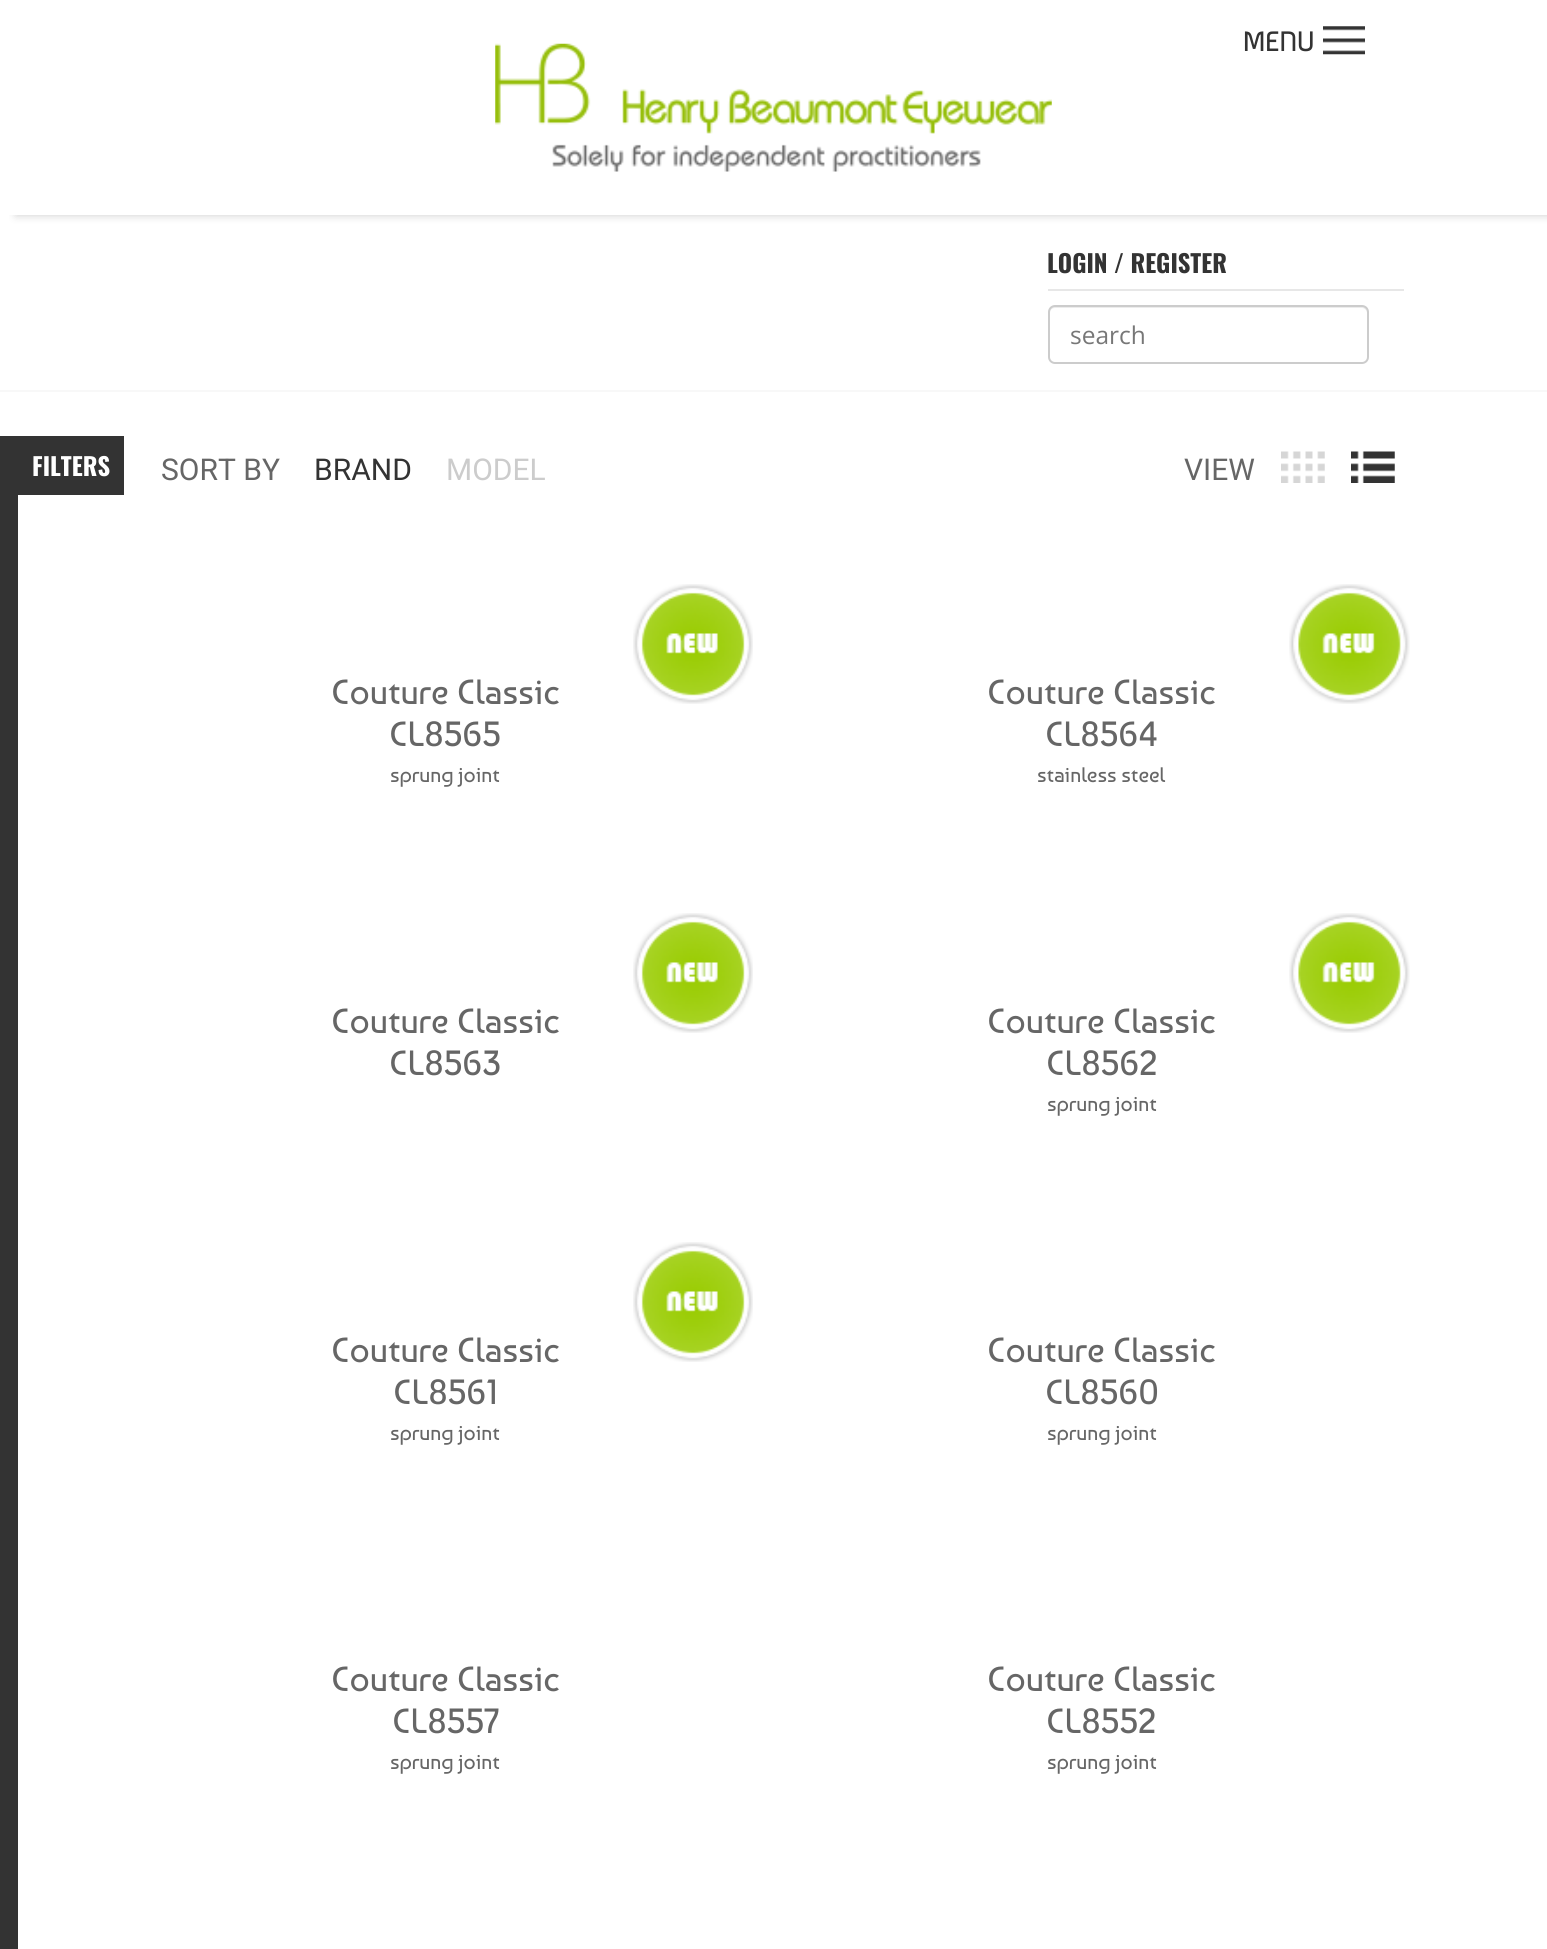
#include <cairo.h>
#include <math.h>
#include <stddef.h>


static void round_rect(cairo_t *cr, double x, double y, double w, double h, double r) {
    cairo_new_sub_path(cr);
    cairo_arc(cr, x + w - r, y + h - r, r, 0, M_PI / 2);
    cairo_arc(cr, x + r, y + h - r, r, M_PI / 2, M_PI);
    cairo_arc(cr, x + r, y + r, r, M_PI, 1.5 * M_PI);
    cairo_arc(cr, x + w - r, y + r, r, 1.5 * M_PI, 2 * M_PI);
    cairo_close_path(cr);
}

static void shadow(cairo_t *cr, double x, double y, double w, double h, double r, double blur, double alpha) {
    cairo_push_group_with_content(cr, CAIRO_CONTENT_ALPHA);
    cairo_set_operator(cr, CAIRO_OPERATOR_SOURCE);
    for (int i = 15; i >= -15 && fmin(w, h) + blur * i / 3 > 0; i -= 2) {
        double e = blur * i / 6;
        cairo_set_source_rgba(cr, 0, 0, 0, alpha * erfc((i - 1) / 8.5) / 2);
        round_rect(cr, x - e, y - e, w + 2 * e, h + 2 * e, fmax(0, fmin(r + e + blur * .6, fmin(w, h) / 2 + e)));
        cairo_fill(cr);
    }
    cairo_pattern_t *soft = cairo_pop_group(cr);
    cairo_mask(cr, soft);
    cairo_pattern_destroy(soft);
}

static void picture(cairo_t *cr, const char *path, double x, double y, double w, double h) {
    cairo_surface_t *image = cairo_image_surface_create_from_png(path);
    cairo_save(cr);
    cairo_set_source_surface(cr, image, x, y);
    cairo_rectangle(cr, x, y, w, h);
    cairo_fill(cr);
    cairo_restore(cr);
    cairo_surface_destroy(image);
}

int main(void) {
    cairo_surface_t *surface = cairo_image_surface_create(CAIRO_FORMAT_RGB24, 1547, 1949);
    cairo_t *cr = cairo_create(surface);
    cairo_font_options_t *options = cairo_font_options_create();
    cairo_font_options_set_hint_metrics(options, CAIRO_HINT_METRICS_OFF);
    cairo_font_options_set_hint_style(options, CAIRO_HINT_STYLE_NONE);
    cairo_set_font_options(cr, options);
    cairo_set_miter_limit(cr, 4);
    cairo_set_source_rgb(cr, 1, 1, 1);
    cairo_paint(cr);
    cairo_set_source_rgb(cr, 0.969, 0.969, 0.969);
    cairo_rectangle(cr, 0, 390, 1547, 2);
    cairo_fill(cr);
    cairo_save(cr);
    cairo_rectangle(cr, 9, 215, 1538, 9);
    cairo_clip(cr);
    cairo_set_source_rgb(cr, 0.8, 0.8, 0.8);
    shadow(cr, 16, 0, 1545, 215, 0, 4.5, 1);
    cairo_restore(cr);
    picture(cr, "img1.png", 495, 43, 557, 129);
    cairo_select_font_face(cr, "Baumans", CAIRO_FONT_SLANT_NORMAL, CAIRO_FONT_WEIGHT_NORMAL);
    cairo_set_font_size(cr, 28);
    cairo_set_source_rgb(cr, 0.2, 0.2, 0.2);
    cairo_move_to(cr, 1243, 51);
    cairo_show_text(cr, "MENU");
    picture(cr, "img2.png", 1323, 26, 42, 29);
    cairo_select_font_face(cr, "Oswald", CAIRO_FONT_SLANT_NORMAL, CAIRO_FONT_WEIGHT_BOLD);
    cairo_set_font_size(cr, 24.5);
    cairo_move_to(cr, 1047, 273);
    cairo_show_text(cr, "LOGIN / REGISTER");
    cairo_set_source_rgb(cr, 0.906, 0.906, 0.906);
    cairo_rectangle(cr, 1048, 289, 356, 2);
    cairo_fill(cr);
    cairo_set_source_rgb(cr, 0.925, 0.925, 0.925);
    cairo_new_path(cr);
    cairo_move_to(cr, 1055, 308);
    cairo_line_to(cr, 1362, 308);
    cairo_curve_to(cr, 1364, 308, 1367, 310, 1367, 313);
    cairo_line_to(cr, 1367, 311);
    cairo_curve_to(cr, 1367, 308, 1365, 306, 1362, 306);
    cairo_line_to(cr, 1055, 306);
    cairo_curve_to(cr, 1052, 306, 1050, 308, 1050, 311);
    cairo_line_to(cr, 1050, 313);
    cairo_curve_to(cr, 1050, 310, 1052, 308, 1055, 308);
    cairo_close_path(cr);
    cairo_fill(cr);
    round_rect(cr, 1049, 306, 319, 57, 6);
    cairo_set_source_rgb(cr, 0.8, 0.8, 0.8);
    cairo_stroke(cr);
    cairo_select_font_face(cr, "Open Sans", CAIRO_FONT_SLANT_NORMAL, CAIRO_FONT_WEIGHT_NORMAL);
    cairo_set_source_rgb(cr, 0.467, 0.467, 0.467);
    cairo_move_to(cr, 1070, 344);
    cairo_show_text(cr, "search");
    cairo_set_source_rgb(cr, 0.2, 0.2, 0.2);
    cairo_rectangle(cr, 0, 436, 18, 1513);
    cairo_fill(cr);
    cairo_rectangle(cr, 18, 436, 106, 59);
    cairo_fill(cr);
    cairo_select_font_face(cr, "Oswald", CAIRO_FONT_SLANT_NORMAL, CAIRO_FONT_WEIGHT_BOLD);
    cairo_set_source_rgb(cr, 1, 1, 1);
    cairo_move_to(cr, 32, 476);
    cairo_show_text(cr, "FILTERS");
    cairo_select_font_face(cr, "Roboto", CAIRO_FONT_SLANT_NORMAL, CAIRO_FONT_WEIGHT_NORMAL);
    cairo_set_font_size(cr, 30);
    cairo_set_source_rgb(cr, 0.4, 0.4, 0.4);
    cairo_move_to(cr, 161, 480);
    cairo_show_text(cr, "SORT BY");
    cairo_set_source_rgb(cr, 0.2, 0.2, 0.2);
    cairo_move_to(cr, 314, 480);
    cairo_show_text(cr, "BRAND");
    cairo_set_source_rgb(cr, 0.8, 0.8, 0.8);
    cairo_move_to(cr, 446, 480);
    cairo_show_text(cr, "MODEL");
    cairo_set_source_rgb(cr, 0.4, 0.4, 0.4);
    cairo_move_to(cr, 1184, 480);
    cairo_show_text(cr, "VIEW");
    picture(cr, "img3.png", 1281, 451, 44, 32);
    picture(cr, "img4.png", 1351, 451, 44, 32);
    picture(cr, "img5.png", 633, 584, 120, 120);
    cairo_select_font_face(cr, "Baumans", CAIRO_FONT_SLANT_NORMAL, CAIRO_FONT_WEIGHT_NORMAL);
    cairo_set_font_size(cr, 35);
    cairo_move_to(cr, 331, 704);
    cairo_show_text(cr, "Couture Classic");
    cairo_move_to(cr, 389, 746);
    cairo_show_text(cr, "CL8565");
    cairo_set_font_size(cr, 21);
    cairo_move_to(cr, 390, 782);
    cairo_show_text(cr, "sprung joint");
    picture(cr, "img6.png", 1289, 584, 121, 120);
    cairo_set_font_size(cr, 35);
    cairo_move_to(cr, 987, 704);
    cairo_show_text(cr, "Couture Classic");
    cairo_move_to(cr, 1045, 746);
    cairo_show_text(cr, "CL8564");
    cairo_set_font_size(cr, 21);
    cairo_move_to(cr, 1037, 782);
    cairo_show_text(cr, "stainless steel");
    picture(cr, "img5.png", 633, 913, 120, 120);
    cairo_set_font_size(cr, 35);
    cairo_move_to(cr, 331, 1033);
    cairo_show_text(cr, "Couture Classic");
    cairo_move_to(cr, 389, 1075);
    cairo_show_text(cr, "CL8563");
    picture(cr, "img6.png", 1289, 913, 121, 120);
    cairo_move_to(cr, 987, 1033);
    cairo_show_text(cr, "Couture Classic");
    cairo_move_to(cr, 1046, 1075);
    cairo_show_text(cr, "CL8562");
    cairo_set_font_size(cr, 21);
    cairo_move_to(cr, 1047, 1111);
    cairo_show_text(cr, "sprung joint");
    picture(cr, "img5.png", 633, 1242, 120, 120);
    cairo_set_font_size(cr, 35);
    cairo_move_to(cr, 331, 1362);
    cairo_show_text(cr, "Couture Classic");
    cairo_move_to(cr, 393, 1404);
    cairo_show_text(cr, "CL8561");
    cairo_set_font_size(cr, 21);
    cairo_move_to(cr, 390, 1440);
    cairo_show_text(cr, "sprung joint");
    cairo_set_font_size(cr, 35);
    cairo_move_to(cr, 987, 1362);
    cairo_show_text(cr, "Couture Classic");
    cairo_move_to(cr, 1045, 1404);
    cairo_show_text(cr, "CL8560");
    cairo_set_font_size(cr, 21);
    cairo_move_to(cr, 1047, 1440);
    cairo_show_text(cr, "sprung joint");
    cairo_set_font_size(cr, 35);
    cairo_move_to(cr, 331, 1691);
    cairo_show_text(cr, "Couture Classic");
    cairo_move_to(cr, 392, 1733);
    cairo_show_text(cr, "CL8557");
    cairo_set_font_size(cr, 21);
    cairo_move_to(cr, 390, 1769);
    cairo_show_text(cr, "sprung joint");
    cairo_set_font_size(cr, 35);
    cairo_move_to(cr, 987, 1691);
    cairo_show_text(cr, "Couture Classic");
    cairo_move_to(cr, 1046, 1733);
    cairo_show_text(cr, "CL8552");
    cairo_set_font_size(cr, 21);
    cairo_move_to(cr, 1047, 1769);
    cairo_show_text(cr, "sprung joint");
    cairo_surface_write_to_png(surface, "page.png");
    cairo_font_options_destroy(options);
    cairo_destroy(cr);
    cairo_surface_destroy(surface);
    return 0;
}
